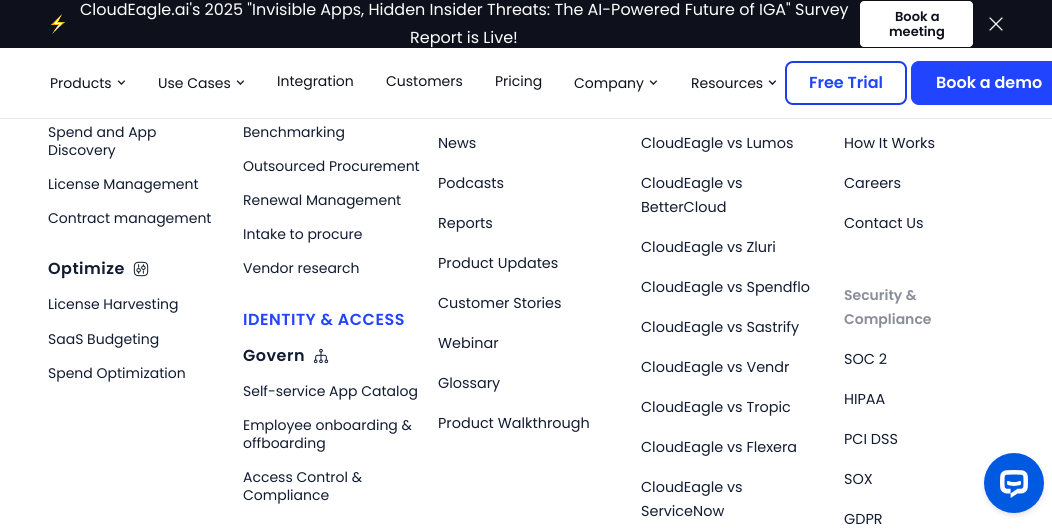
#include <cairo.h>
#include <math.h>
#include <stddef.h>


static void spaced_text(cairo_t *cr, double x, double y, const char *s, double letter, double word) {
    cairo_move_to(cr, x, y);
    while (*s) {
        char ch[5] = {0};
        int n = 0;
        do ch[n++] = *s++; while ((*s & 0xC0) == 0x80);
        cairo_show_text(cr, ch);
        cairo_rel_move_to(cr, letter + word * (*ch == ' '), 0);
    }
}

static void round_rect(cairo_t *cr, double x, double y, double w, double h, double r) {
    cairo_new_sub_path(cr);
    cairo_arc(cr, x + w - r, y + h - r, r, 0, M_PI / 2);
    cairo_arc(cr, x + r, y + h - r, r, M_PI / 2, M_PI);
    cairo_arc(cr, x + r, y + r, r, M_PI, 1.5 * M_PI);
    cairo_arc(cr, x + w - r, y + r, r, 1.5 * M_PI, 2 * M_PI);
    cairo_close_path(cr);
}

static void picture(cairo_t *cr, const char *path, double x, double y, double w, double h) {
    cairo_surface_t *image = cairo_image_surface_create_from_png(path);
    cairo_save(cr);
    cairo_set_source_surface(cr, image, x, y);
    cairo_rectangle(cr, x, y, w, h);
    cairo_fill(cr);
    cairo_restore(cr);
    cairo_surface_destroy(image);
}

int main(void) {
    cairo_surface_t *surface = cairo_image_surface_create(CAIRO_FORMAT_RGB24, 1052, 529);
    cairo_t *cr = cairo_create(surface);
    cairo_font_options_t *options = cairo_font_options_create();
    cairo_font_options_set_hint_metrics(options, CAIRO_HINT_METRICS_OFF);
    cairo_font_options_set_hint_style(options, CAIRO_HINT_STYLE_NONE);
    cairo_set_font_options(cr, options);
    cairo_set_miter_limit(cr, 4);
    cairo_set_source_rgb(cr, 1, 1, 1);
    cairo_paint(cr);
    cairo_set_source_rgb(cr, 0.91, 0.914, 0.933);
    cairo_rectangle(cr, 0, 118, 1052, 1);
    cairo_fill(cr);
    cairo_set_source_rgb(cr, 0.055, 0.063, 0.106);
    cairo_rectangle(cr, 0, 0, 1052, 48);
    cairo_fill(cr);
    picture(cr, "img1.png", 51, 14, 14, 20);
    cairo_select_font_face(cr, "Poppins", CAIRO_FONT_SLANT_NORMAL, CAIRO_FONT_WEIGHT_NORMAL);
    cairo_set_font_size(cr, 16);
    cairo_set_source_rgb(cr, 1, 1, 1);
    cairo_move_to(cr, 80, 15);
    cairo_show_text(cr, "CloudEagle.ai's 2025 \"Invisible Apps, Hidden Insider Threats: The AI-Powered Future of IGA\" Survey");
    cairo_move_to(cr, 410, 43);
    cairo_show_text(cr, "Report is Live!");
    round_rect(cr, 860, 1, 113, 46, 4);
    cairo_fill(cr);
    cairo_select_font_face(cr, "Poppins SemiBold", CAIRO_FONT_SLANT_NORMAL, CAIRO_FONT_WEIGHT_NORMAL);
    cairo_set_font_size(cr, 13);
    cairo_set_source_rgb(cr, 0.055, 0.063, 0.106);
    cairo_move_to(cr, 895, 21);
    cairo_show_text(cr, "Book a");
    cairo_move_to(cr, 889, 36);
    cairo_show_text(cr, "meeting");
    cairo_new_path(cr);
    cairo_move_to(cr, 990, 30);
    cairo_line_to(cr, 1002, 18);
    cairo_move_to(cr, 1002, 30);
    cairo_line_to(cr, 990, 18);
    cairo_set_source_rgb(cr, 0.969, 0.969, 0.988);
    cairo_set_line_width(cr, 1.3);
    cairo_set_line_cap(cr, CAIRO_LINE_CAP_ROUND);
    cairo_set_line_join(cr, CAIRO_LINE_JOIN_ROUND);
    cairo_stroke(cr);
    cairo_select_font_face(cr, "Poppins", CAIRO_FONT_SLANT_NORMAL, CAIRO_FONT_WEIGHT_NORMAL);
    cairo_set_font_size(cr, 14);
    cairo_set_source_rgb(cr, 0.055, 0.063, 0.106);
    cairo_move_to(cr, 50, 88);
    cairo_show_text(cr, "Products");
    picture(cr, "img2.png", 117, 80, 9, 6);
    cairo_move_to(cr, 158, 88);
    cairo_show_text(cr, "Use Cases");
    picture(cr, "img2.png", 236, 80, 9, 6);
    cairo_move_to(cr, 277, 86);
    cairo_show_text(cr, "Integration");
    cairo_move_to(cr, 386, 86);
    cairo_show_text(cr, "Customers");
    cairo_move_to(cr, 495, 86);
    cairo_show_text(cr, "Pricing");
    cairo_move_to(cr, 574, 88);
    cairo_show_text(cr, "Company");
    picture(cr, "img2.png", 649, 80, 9, 6);
    cairo_move_to(cr, 691, 88);
    cairo_show_text(cr, "Resources");
    picture(cr, "img3.png", 768, 80, 9, 6);
    round_rect(cr, 786, 62, 120, 42, 7);
    cairo_set_source_rgb(cr, 0.11, 0.239, 0.918);
    cairo_set_line_width(cr, 2);
    cairo_set_line_cap(cr, CAIRO_LINE_CAP_BUTT);
    cairo_set_line_join(cr, CAIRO_LINE_JOIN_MITER);
    cairo_stroke(cr);
    cairo_select_font_face(cr, "Poppins SemiBold", CAIRO_FONT_SLANT_NORMAL, CAIRO_FONT_WEIGHT_NORMAL);
    cairo_set_font_size(cr, 16);
    cairo_set_source_rgb(cr, 0.129, 0.271, 1);
    cairo_move_to(cr, 809, 88);
    cairo_show_text(cr, "Free Trial");
    round_rect(cr, 911.5, 61.5, 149, 43, 7.5);
    cairo_fill_preserve(cr);
    cairo_set_line_width(cr, 1);
    cairo_stroke(cr);
    cairo_set_source_rgb(cr, 1, 1, 1);
    cairo_move_to(cr, 936, 88);
    cairo_show_text(cr, "Book a demo");
    cairo_select_font_face(cr, "Poppins", CAIRO_FONT_SLANT_NORMAL, CAIRO_FONT_WEIGHT_NORMAL);
    cairo_set_font_size(cr, 14);
    cairo_set_source_rgb(cr, 0.067, 0.106, 0.192);
    cairo_move_to(cr, 48, 137);
    cairo_show_text(cr, "Spend and App");
    cairo_move_to(cr, 48, 155);
    cairo_show_text(cr, "Discovery");
    cairo_move_to(cr, 48, 189);
    cairo_show_text(cr, "License Management");
    cairo_move_to(cr, 48, 223);
    cairo_show_text(cr, "Contract management");
    cairo_select_font_face(cr, "Poppins SemiBold", CAIRO_FONT_SLANT_NORMAL, CAIRO_FONT_WEIGHT_NORMAL);
    cairo_set_font_size(cr, 16);
    spaced_text(cr, 48, 274, "Optimize", 0.5, 0);
    picture(cr, "img4.png", 133, 261, 16, 16);
    cairo_select_font_face(cr, "Poppins", CAIRO_FONT_SLANT_NORMAL, CAIRO_FONT_WEIGHT_NORMAL);
    cairo_set_font_size(cr, 14);
    cairo_move_to(cr, 48, 309);
    cairo_show_text(cr, "License Harvesting");
    cairo_move_to(cr, 48, 344);
    cairo_show_text(cr, "SaaS Budgeting");
    cairo_move_to(cr, 48, 378);
    cairo_show_text(cr, "Spend Optimization");
    cairo_move_to(cr, 243, 137);
    cairo_show_text(cr, "Benchmarking");
    cairo_move_to(cr, 243, 171);
    cairo_show_text(cr, "Outsourced Procurement");
    cairo_move_to(cr, 243, 205);
    cairo_show_text(cr, "Renewal Management");
    cairo_move_to(cr, 243, 239);
    cairo_show_text(cr, "Intake to procure");
    cairo_move_to(cr, 243, 273);
    cairo_show_text(cr, "Vendor research");
    cairo_select_font_face(cr, "Poppins SemiBold", CAIRO_FONT_SLANT_NORMAL, CAIRO_FONT_WEIGHT_NORMAL);
    cairo_set_font_size(cr, 16);
    cairo_set_source_rgb(cr, 0.129, 0.271, 1);
    spaced_text(cr, 243, 325, "IDENTITY & ACCESS", 0.5, 0);
    cairo_set_source_rgb(cr, 0.067, 0.106, 0.192);
    spaced_text(cr, 243, 361, "Govern", 0.5, 0);
    picture(cr, "img5.png", 313, 348, 16, 16);
    cairo_select_font_face(cr, "Poppins", CAIRO_FONT_SLANT_NORMAL, CAIRO_FONT_WEIGHT_NORMAL);
    cairo_set_font_size(cr, 14);
    cairo_move_to(cr, 243, 396);
    cairo_show_text(cr, "Self-service App Catalog");
    cairo_move_to(cr, 243, 430);
    cairo_show_text(cr, "Employee onboarding &");
    cairo_move_to(cr, 243, 448);
    cairo_show_text(cr, "offboarding");
    cairo_move_to(cr, 243, 482);
    cairo_show_text(cr, "Access Control &");
    cairo_move_to(cr, 243, 500);
    cairo_show_text(cr, "Compliance");
    cairo_set_font_size(cr, 14.4);
    cairo_move_to(cr, 438, 148);
    cairo_show_text(cr, "News");
    cairo_move_to(cr, 438, 188);
    cairo_show_text(cr, "Podcasts");
    cairo_move_to(cr, 438, 228);
    cairo_show_text(cr, "Reports");
    cairo_move_to(cr, 438, 268);
    cairo_show_text(cr, "Product Updates");
    cairo_move_to(cr, 438, 308);
    cairo_show_text(cr, "Customer Stories");
    cairo_move_to(cr, 438, 348);
    cairo_show_text(cr, "Webinar");
    cairo_move_to(cr, 438, 388);
    cairo_show_text(cr, "Glossary");
    cairo_move_to(cr, 438, 428);
    cairo_show_text(cr, "Product Walkthrough");
    cairo_move_to(cr, 641, 148);
    cairo_show_text(cr, "CloudEagle vs Lumos");
    cairo_move_to(cr, 641, 188);
    cairo_show_text(cr, "CloudEagle vs");
    cairo_move_to(cr, 641, 212);
    cairo_show_text(cr, "BetterCloud");
    cairo_move_to(cr, 641, 252);
    cairo_show_text(cr, "CloudEagle vs Zluri");
    cairo_move_to(cr, 641, 292);
    cairo_show_text(cr, "CloudEagle vs Spendflo");
    cairo_move_to(cr, 641, 332);
    cairo_show_text(cr, "CloudEagle vs Sastrify");
    cairo_move_to(cr, 641, 372);
    cairo_show_text(cr, "CloudEagle vs Vendr");
    cairo_move_to(cr, 641, 412);
    cairo_show_text(cr, "CloudEagle vs Tropic");
    cairo_move_to(cr, 641, 452);
    cairo_show_text(cr, "CloudEagle vs Flexera");
    cairo_move_to(cr, 641, 492);
    cairo_show_text(cr, "CloudEagle vs");
    cairo_move_to(cr, 641, 516);
    cairo_show_text(cr, "ServiceNow");
    cairo_move_to(cr, 844, 148);
    cairo_show_text(cr, "How It Works");
    cairo_move_to(cr, 844, 188);
    cairo_show_text(cr, "Careers");
    cairo_move_to(cr, 844, 228);
    cairo_show_text(cr, "Contact Us");
    cairo_select_font_face(cr, "Poppins SemiBold", CAIRO_FONT_SLANT_NORMAL, CAIRO_FONT_WEIGHT_NORMAL);
    cairo_set_font_size(cr, 14);
    cairo_set_source_rgb(cr, 0.533, 0.553, 0.596);
    cairo_move_to(cr, 844, 300);
    cairo_show_text(cr, "Security &");
    cairo_move_to(cr, 844, 324);
    cairo_show_text(cr, "Compliance");
    cairo_select_font_face(cr, "Poppins", CAIRO_FONT_SLANT_NORMAL, CAIRO_FONT_WEIGHT_NORMAL);
    cairo_set_font_size(cr, 14.4);
    cairo_set_source_rgb(cr, 0.067, 0.106, 0.192);
    cairo_move_to(cr, 844, 364);
    cairo_show_text(cr, "SOC 2");
    cairo_move_to(cr, 844, 404);
    cairo_show_text(cr, "HIPAA");
    cairo_move_to(cr, 844, 444);
    cairo_show_text(cr, "PCI DSS");
    cairo_move_to(cr, 844, 484);
    cairo_show_text(cr, "SOX");
    cairo_move_to(cr, 844, 524);
    cairo_show_text(cr, "GDPR");
    picture(cr, "img6.png", 982, 453, 64, 65);
    cairo_surface_write_to_png(surface, "page.png");
    cairo_font_options_destroy(options);
    cairo_destroy(cr);
    cairo_surface_destroy(surface);
    return 0;
}
